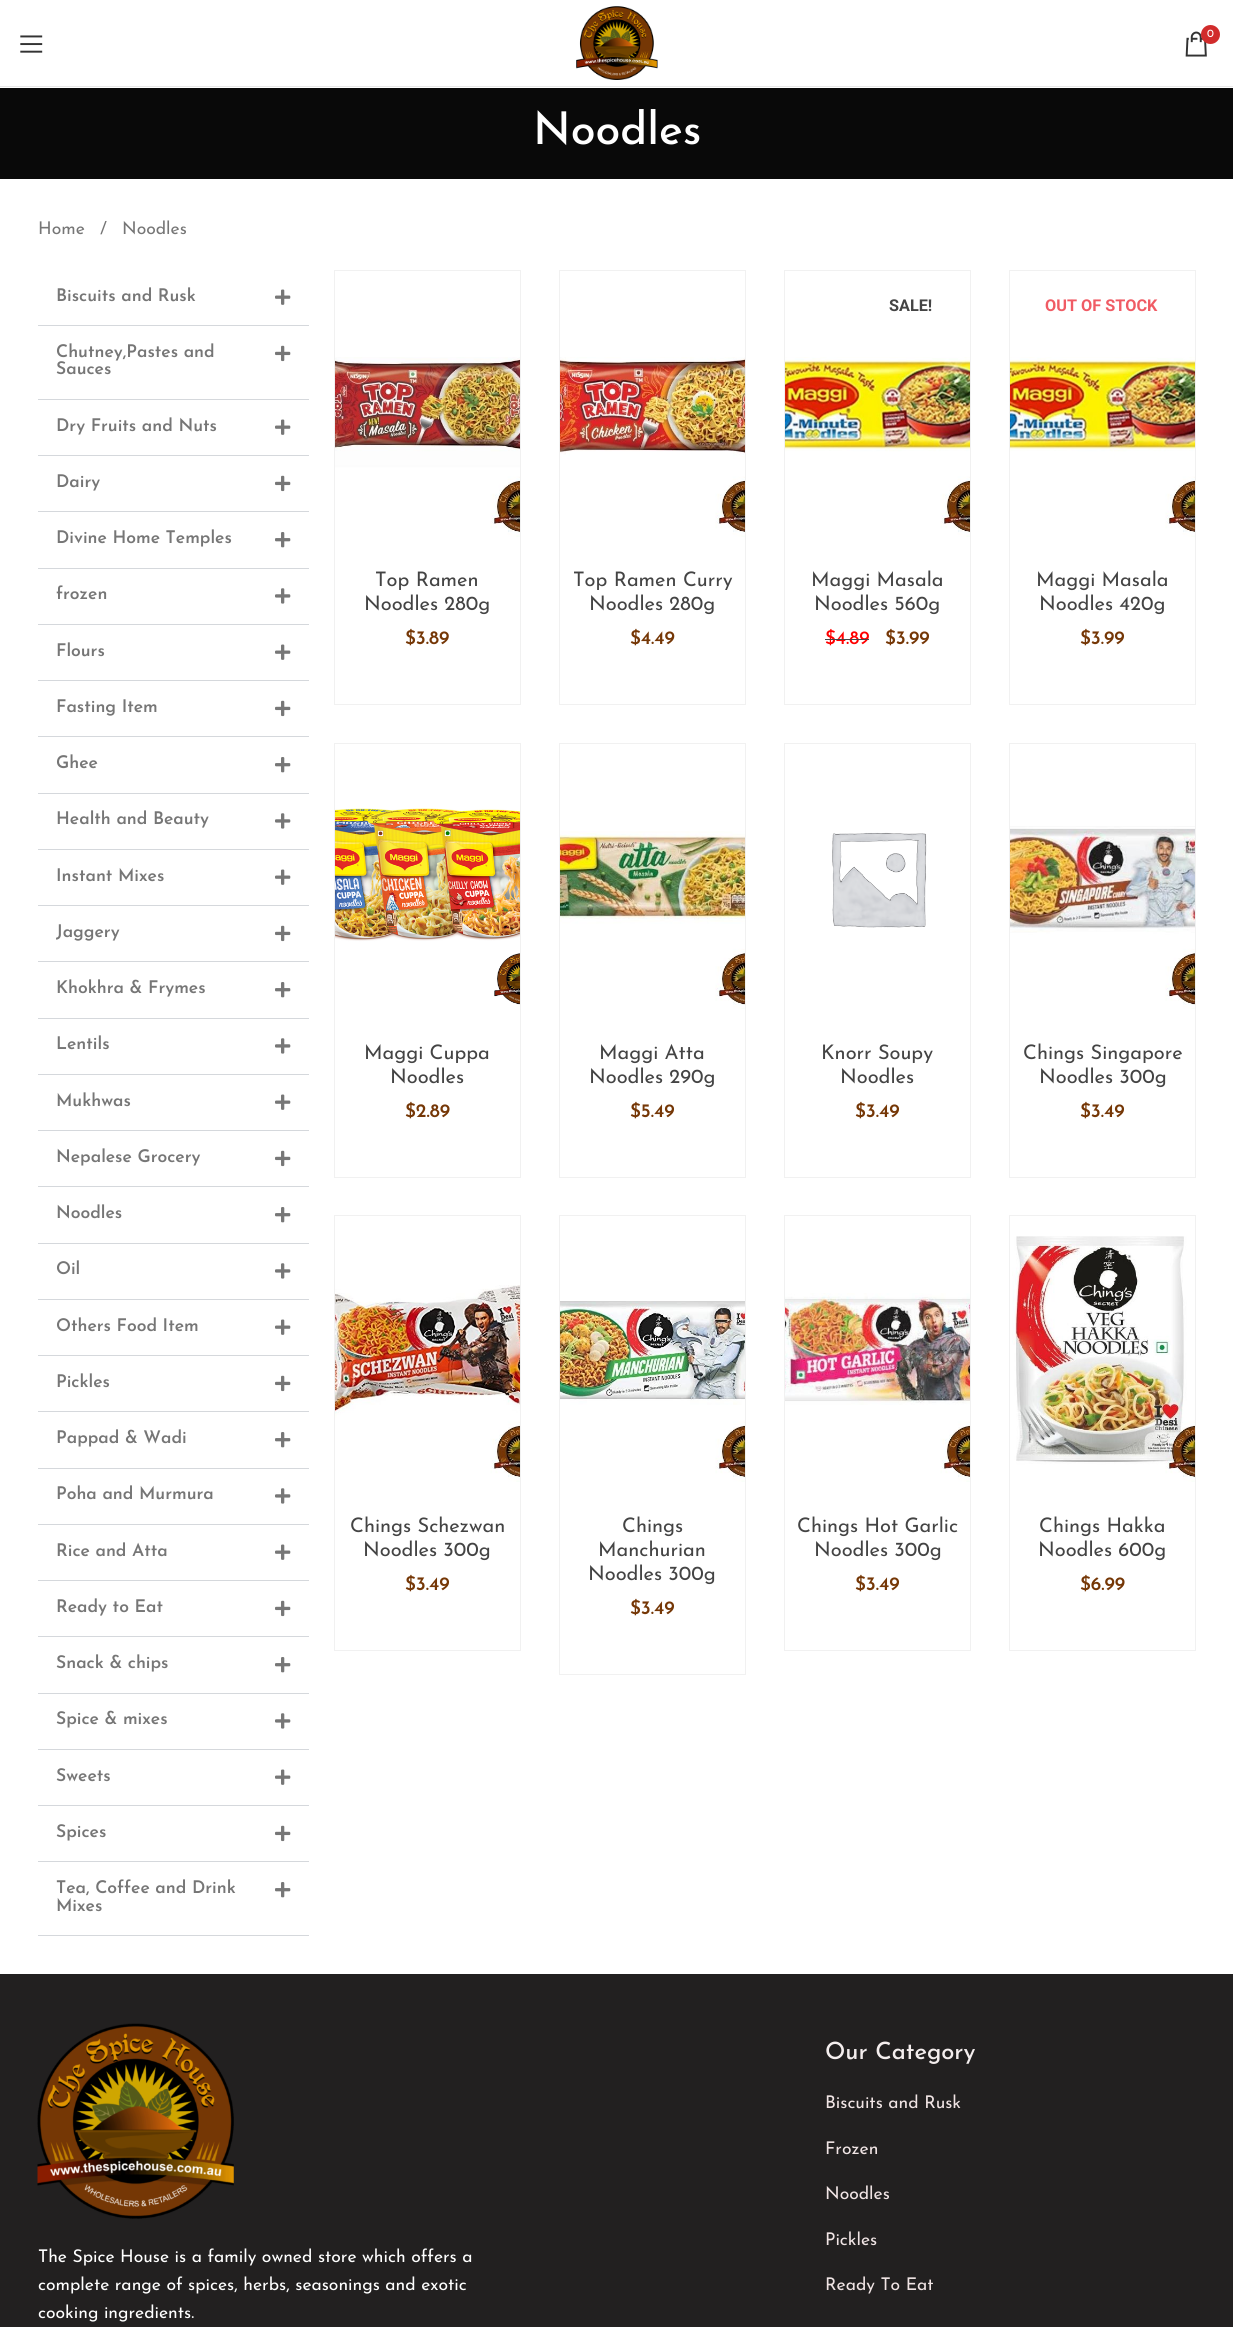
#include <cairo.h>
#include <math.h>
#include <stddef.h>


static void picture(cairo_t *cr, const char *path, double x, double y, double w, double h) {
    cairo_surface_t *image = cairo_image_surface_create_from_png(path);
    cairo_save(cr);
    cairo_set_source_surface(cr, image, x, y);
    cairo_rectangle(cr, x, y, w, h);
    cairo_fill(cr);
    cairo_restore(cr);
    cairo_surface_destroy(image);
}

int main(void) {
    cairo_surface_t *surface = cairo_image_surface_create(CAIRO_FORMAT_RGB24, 1233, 2327);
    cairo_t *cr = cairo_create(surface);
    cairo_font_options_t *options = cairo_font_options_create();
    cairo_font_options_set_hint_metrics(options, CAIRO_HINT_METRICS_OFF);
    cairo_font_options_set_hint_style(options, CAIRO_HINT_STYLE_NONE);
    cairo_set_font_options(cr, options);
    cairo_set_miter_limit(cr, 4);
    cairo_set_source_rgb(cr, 1, 1, 1);
    cairo_paint(cr);
    cairo_set_source_rgb(cr, 0.91, 0.91, 0.91);
    cairo_rectangle(cr, 0, 86, 1233, 1);
    cairo_fill(cr);
    picture(cr, "img1.png", 576, 6, 82, 74);
    picture(cr, "img2.png", 1185, 31, 22, 26);
    cairo_set_source_rgb(cr, 0.82, 0.173, 0.173);
    cairo_arc(cr, 1210.5, 34.5, 9.5, 0, 2 * M_PI);
    cairo_fill(cr);
    cairo_select_font_face(cr, "Josefin Sans", CAIRO_FONT_SLANT_NORMAL, CAIRO_FONT_WEIGHT_NORMAL);
    cairo_set_font_size(cr, 11);
    cairo_set_source_rgb(cr, 1, 1, 1);
    cairo_move_to(cr, 1207, 37);
    cairo_show_text(cr, "0");
    picture(cr, "img3.png", 20, 35, 23, 18);
    cairo_set_source_rgb(cr, 0.039, 0.039, 0.039);
    cairo_rectangle(cr, 0, 88, 1233, 91);
    cairo_fill(cr);
    cairo_select_font_face(cr, "Josefin Sans Medium", CAIRO_FONT_SLANT_NORMAL, CAIRO_FONT_WEIGHT_NORMAL);
    cairo_set_font_size(cr, 45);
    cairo_set_source_rgb(cr, 1, 1, 1);
    cairo_move_to(cr, 533, 144);
    cairo_show_text(cr, "Noodles");
    cairo_select_font_face(cr, "Josefin Sans", CAIRO_FONT_SLANT_NORMAL, CAIRO_FONT_WEIGHT_NORMAL);
    cairo_set_font_size(cr, 17.5);
    cairo_set_source_rgb(cr, 0.463, 0.463, 0.463);
    cairo_move_to(cr, 38, 234);
    cairo_show_text(cr, "Home");
    cairo_move_to(cr, 100, 234);
    cairo_show_text(cr, "/");
    cairo_move_to(cr, 122, 234);
    cairo_show_text(cr, "Noodles");
    cairo_set_source_rgb(cr, 0.835, 0.847, 0.863);
    cairo_rectangle(cr, 38, 325, 271, 1);
    cairo_fill(cr);
    cairo_select_font_face(cr, "Josefin Sans SemiBold", CAIRO_FONT_SLANT_NORMAL, CAIRO_FONT_WEIGHT_NORMAL);
    cairo_set_source_rgb(cr, 0.463, 0.463, 0.463);
    cairo_move_to(cr, 56, 301);
    cairo_show_text(cr, "Biscuits and Rusk");
    picture(cr, "img4.png", 275, 289, 16, 16);
    cairo_set_source_rgb(cr, 0.835, 0.847, 0.863);
    cairo_rectangle(cr, 38, 399, 271, 1);
    cairo_fill(cr);
    cairo_set_source_rgb(cr, 0.463, 0.463, 0.463);
    cairo_move_to(cr, 56, 357);
    cairo_show_text(cr, "Chutney,Pastes and");
    picture(cr, "img5.png", 275, 345, 16, 17);
    cairo_move_to(cr, 56, 374);
    cairo_show_text(cr, "Sauces");
    cairo_set_source_rgb(cr, 0.835, 0.847, 0.863);
    cairo_rectangle(cr, 38, 455, 271, 1);
    cairo_fill(cr);
    cairo_set_source_rgb(cr, 0.463, 0.463, 0.463);
    cairo_move_to(cr, 56, 431);
    cairo_show_text(cr, "Dry Fruits and Nuts");
    picture(cr, "img4.png", 275, 419, 16, 16);
    cairo_set_source_rgb(cr, 0.835, 0.847, 0.863);
    cairo_rectangle(cr, 38, 511, 271, 1);
    cairo_fill(cr);
    cairo_set_source_rgb(cr, 0.463, 0.463, 0.463);
    cairo_move_to(cr, 56, 487);
    cairo_show_text(cr, "Dairy");
    picture(cr, "img5.png", 275, 475, 16, 17);
    cairo_set_source_rgb(cr, 0.835, 0.847, 0.863);
    cairo_rectangle(cr, 38, 568, 271, 1);
    cairo_fill(cr);
    cairo_set_source_rgb(cr, 0.463, 0.463, 0.463);
    cairo_move_to(cr, 56, 543);
    cairo_show_text(cr, "Divine Home Temples");
    picture(cr, "img6.png", 275, 532, 16, 16);
    cairo_set_source_rgb(cr, 0.835, 0.847, 0.863);
    cairo_rectangle(cr, 38, 624, 271, 1);
    cairo_fill(cr);
    cairo_set_source_rgb(cr, 0.463, 0.463, 0.463);
    cairo_move_to(cr, 56, 599);
    cairo_show_text(cr, "frozen");
    picture(cr, "img7.png", 275, 588, 16, 16);
    cairo_set_source_rgb(cr, 0.835, 0.847, 0.863);
    cairo_rectangle(cr, 38, 680, 271, 1);
    cairo_fill(cr);
    cairo_set_source_rgb(cr, 0.463, 0.463, 0.463);
    cairo_move_to(cr, 56, 656);
    cairo_show_text(cr, "Flours");
    picture(cr, "img4.png", 275, 644, 16, 16);
    cairo_set_source_rgb(cr, 0.835, 0.847, 0.863);
    cairo_rectangle(cr, 38, 736, 271, 1);
    cairo_fill(cr);
    cairo_set_source_rgb(cr, 0.463, 0.463, 0.463);
    cairo_move_to(cr, 56, 712);
    cairo_show_text(cr, "Fasting Item");
    picture(cr, "img5.png", 275, 700, 16, 17);
    cairo_set_source_rgb(cr, 0.835, 0.847, 0.863);
    cairo_rectangle(cr, 38, 793, 271, 1);
    cairo_fill(cr);
    cairo_set_source_rgb(cr, 0.463, 0.463, 0.463);
    cairo_move_to(cr, 56, 768);
    cairo_show_text(cr, "Ghee");
    picture(cr, "img6.png", 275, 757, 16, 16);
    cairo_set_source_rgb(cr, 0.835, 0.847, 0.863);
    cairo_rectangle(cr, 38, 849, 271, 1);
    cairo_fill(cr);
    cairo_set_source_rgb(cr, 0.463, 0.463, 0.463);
    cairo_move_to(cr, 56, 824);
    cairo_show_text(cr, "Health and Beauty");
    picture(cr, "img7.png", 275, 813, 16, 16);
    cairo_set_source_rgb(cr, 0.835, 0.847, 0.863);
    cairo_rectangle(cr, 38, 905, 271, 1);
    cairo_fill(cr);
    cairo_set_source_rgb(cr, 0.463, 0.463, 0.463);
    cairo_move_to(cr, 56, 881);
    cairo_show_text(cr, "Instant Mixes");
    picture(cr, "img4.png", 275, 869, 16, 16);
    cairo_set_source_rgb(cr, 0.835, 0.847, 0.863);
    cairo_rectangle(cr, 38, 961, 271, 1);
    cairo_fill(cr);
    cairo_set_source_rgb(cr, 0.463, 0.463, 0.463);
    cairo_move_to(cr, 56, 937);
    cairo_show_text(cr, "Jaggery");
    picture(cr, "img5.png", 275, 925, 16, 17);
    cairo_set_source_rgb(cr, 0.835, 0.847, 0.863);
    cairo_rectangle(cr, 38, 1018, 271, 1);
    cairo_fill(cr);
    cairo_set_source_rgb(cr, 0.463, 0.463, 0.463);
    cairo_move_to(cr, 56, 993);
    cairo_show_text(cr, "Khokhra & Frymes");
    picture(cr, "img6.png", 275, 982, 16, 16);
    cairo_set_source_rgb(cr, 0.835, 0.847, 0.863);
    cairo_rectangle(cr, 38, 1074, 271, 1);
    cairo_fill(cr);
    cairo_set_source_rgb(cr, 0.463, 0.463, 0.463);
    cairo_move_to(cr, 56, 1049);
    cairo_show_text(cr, "Lentils");
    picture(cr, "img7.png", 275, 1038, 16, 16);
    cairo_set_source_rgb(cr, 0.835, 0.847, 0.863);
    cairo_rectangle(cr, 38, 1130, 271, 1);
    cairo_fill(cr);
    cairo_set_source_rgb(cr, 0.463, 0.463, 0.463);
    cairo_move_to(cr, 56, 1106);
    cairo_show_text(cr, "Mukhwas");
    picture(cr, "img4.png", 275, 1094, 16, 16);
    cairo_set_source_rgb(cr, 0.835, 0.847, 0.863);
    cairo_rectangle(cr, 38, 1186, 271, 1);
    cairo_fill(cr);
    cairo_set_source_rgb(cr, 0.463, 0.463, 0.463);
    cairo_move_to(cr, 56, 1162);
    cairo_show_text(cr, "Nepalese Grocery");
    picture(cr, "img5.png", 275, 1150, 16, 17);
    cairo_set_source_rgb(cr, 0.835, 0.847, 0.863);
    cairo_rectangle(cr, 38, 1243, 271, 1);
    cairo_fill(cr);
    cairo_set_source_rgb(cr, 0.463, 0.463, 0.463);
    cairo_move_to(cr, 56, 1218);
    cairo_show_text(cr, "Noodles");
    picture(cr, "img6.png", 275, 1207, 16, 16);
    cairo_set_source_rgb(cr, 0.835, 0.847, 0.863);
    cairo_rectangle(cr, 38, 1299, 271, 1);
    cairo_fill(cr);
    cairo_set_source_rgb(cr, 0.463, 0.463, 0.463);
    cairo_move_to(cr, 56, 1274);
    cairo_show_text(cr, "Oil");
    picture(cr, "img7.png", 275, 1263, 16, 16);
    cairo_set_source_rgb(cr, 0.835, 0.847, 0.863);
    cairo_rectangle(cr, 38, 1355, 271, 1);
    cairo_fill(cr);
    cairo_set_source_rgb(cr, 0.463, 0.463, 0.463);
    cairo_move_to(cr, 56, 1331);
    cairo_show_text(cr, "Others Food Item");
    picture(cr, "img4.png", 275, 1319, 16, 16);
    cairo_set_source_rgb(cr, 0.835, 0.847, 0.863);
    cairo_rectangle(cr, 38, 1411, 271, 1);
    cairo_fill(cr);
    cairo_set_source_rgb(cr, 0.463, 0.463, 0.463);
    cairo_move_to(cr, 56, 1387);
    cairo_show_text(cr, "Pickles");
    picture(cr, "img5.png", 275, 1375, 16, 17);
    cairo_set_source_rgb(cr, 0.835, 0.847, 0.863);
    cairo_rectangle(cr, 38, 1468, 271, 1);
    cairo_fill(cr);
    cairo_set_source_rgb(cr, 0.463, 0.463, 0.463);
    cairo_move_to(cr, 56, 1443);
    cairo_show_text(cr, "Pappad & Wadi");
    picture(cr, "img6.png", 275, 1432, 16, 16);
    cairo_set_source_rgb(cr, 0.835, 0.847, 0.863);
    cairo_rectangle(cr, 38, 1524, 271, 1);
    cairo_fill(cr);
    cairo_set_source_rgb(cr, 0.463, 0.463, 0.463);
    cairo_move_to(cr, 56, 1499);
    cairo_show_text(cr, "Poha and Murmura");
    picture(cr, "img7.png", 275, 1488, 16, 16);
    cairo_set_source_rgb(cr, 0.835, 0.847, 0.863);
    cairo_rectangle(cr, 38, 1580, 271, 1);
    cairo_fill(cr);
    cairo_set_source_rgb(cr, 0.463, 0.463, 0.463);
    cairo_move_to(cr, 56, 1556);
    cairo_show_text(cr, "Rice and Atta");
    picture(cr, "img4.png", 275, 1544, 16, 16);
    cairo_set_source_rgb(cr, 0.835, 0.847, 0.863);
    cairo_rectangle(cr, 38, 1636, 271, 1);
    cairo_fill(cr);
    cairo_set_source_rgb(cr, 0.463, 0.463, 0.463);
    cairo_move_to(cr, 56, 1612);
    cairo_show_text(cr, "Ready to Eat");
    picture(cr, "img5.png", 275, 1600, 16, 17);
    cairo_set_source_rgb(cr, 0.835, 0.847, 0.863);
    cairo_rectangle(cr, 38, 1693, 271, 1);
    cairo_fill(cr);
    cairo_set_source_rgb(cr, 0.463, 0.463, 0.463);
    cairo_move_to(cr, 56, 1668);
    cairo_show_text(cr, "Snack & chips");
    picture(cr, "img6.png", 275, 1657, 16, 16);
    cairo_set_source_rgb(cr, 0.835, 0.847, 0.863);
    cairo_rectangle(cr, 38, 1749, 271, 1);
    cairo_fill(cr);
    cairo_set_source_rgb(cr, 0.463, 0.463, 0.463);
    cairo_move_to(cr, 56, 1724);
    cairo_show_text(cr, "Spice & mixes");
    picture(cr, "img7.png", 275, 1713, 16, 16);
    cairo_set_source_rgb(cr, 0.835, 0.847, 0.863);
    cairo_rectangle(cr, 38, 1805, 271, 1);
    cairo_fill(cr);
    cairo_set_source_rgb(cr, 0.463, 0.463, 0.463);
    cairo_move_to(cr, 56, 1781);
    cairo_show_text(cr, "Sweets");
    picture(cr, "img4.png", 275, 1769, 16, 16);
    cairo_set_source_rgb(cr, 0.835, 0.847, 0.863);
    cairo_rectangle(cr, 38, 1861, 271, 1);
    cairo_fill(cr);
    cairo_set_source_rgb(cr, 0.463, 0.463, 0.463);
    cairo_move_to(cr, 56, 1837);
    cairo_show_text(cr, "Spices");
    picture(cr, "img5.png", 275, 1825, 16, 17);
    cairo_set_source_rgb(cr, 0.835, 0.847, 0.863);
    cairo_rectangle(cr, 38, 1935, 271, 1);
    cairo_fill(cr);
    cairo_set_source_rgb(cr, 0.463, 0.463, 0.463);
    cairo_move_to(cr, 56, 1893);
    cairo_show_text(cr, "Tea, Coffee and Drink");
    picture(cr, "img6.png", 275, 1882, 16, 16);
    cairo_move_to(cr, 56, 1911);
    cairo_show_text(cr, "Mixes");
    cairo_rectangle(cr, 334.5, 270.5, 186, 434);
    cairo_set_source_rgb(cr, 0.945, 0.945, 0.945);
    cairo_set_line_width(cr, 1);
    cairo_stroke(cr);
    picture(cr, "img8.png", 335, 357, 185, 180);
    cairo_select_font_face(cr, "Josefin Sans", CAIRO_FONT_SLANT_NORMAL, CAIRO_FONT_WEIGHT_NORMAL);
    cairo_set_font_size(cr, 20);
    cairo_set_source_rgb(cr, 0.267, 0.267, 0.267);
    cairo_move_to(cr, 375, 586);
    cairo_show_text(cr, "Top Ramen");
    cairo_move_to(cr, 364, 610);
    cairo_show_text(cr, "Noodles 280g");
    cairo_select_font_face(cr, "Josefin Sans SemiBold", CAIRO_FONT_SLANT_NORMAL, CAIRO_FONT_WEIGHT_NORMAL);
    cairo_set_font_size(cr, 19);
    cairo_set_source_rgb(cr, 0.459, 0.216, 0.024);
    cairo_move_to(cr, 405, 644);
    cairo_show_text(cr, "$3.89");
    cairo_rectangle(cr, 559.5, 270.5, 186, 434);
    cairo_set_source_rgb(cr, 0.945, 0.945, 0.945);
    cairo_stroke(cr);
    picture(cr, "img9.png", 560, 357, 185, 180);
    cairo_select_font_face(cr, "Josefin Sans", CAIRO_FONT_SLANT_NORMAL, CAIRO_FONT_WEIGHT_NORMAL);
    cairo_set_font_size(cr, 20);
    cairo_set_source_rgb(cr, 0.267, 0.267, 0.267);
    cairo_move_to(cr, 573, 586);
    cairo_show_text(cr, "Top Ramen Curry");
    cairo_move_to(cr, 589, 610);
    cairo_show_text(cr, "Noodles 280g");
    cairo_select_font_face(cr, "Josefin Sans SemiBold", CAIRO_FONT_SLANT_NORMAL, CAIRO_FONT_WEIGHT_NORMAL);
    cairo_set_font_size(cr, 19);
    cairo_set_source_rgb(cr, 0.459, 0.216, 0.024);
    cairo_move_to(cr, 630, 644);
    cairo_show_text(cr, "$4.49");
    cairo_rectangle(cr, 784.5, 270.5, 186, 434);
    cairo_set_source_rgb(cr, 0.945, 0.945, 0.945);
    cairo_stroke(cr);
    cairo_select_font_face(cr, "Roboto", CAIRO_FONT_SLANT_NORMAL, CAIRO_FONT_WEIGHT_BOLD);
    cairo_set_font_size(cr, 16.25);
    cairo_set_source_rgb(cr, 0.267, 0.267, 0.267);
    cairo_move_to(cr, 889, 311);
    cairo_show_text(cr, "SALE!");
    picture(cr, "img10.png", 785, 357, 185, 180);
    cairo_select_font_face(cr, "Josefin Sans", CAIRO_FONT_SLANT_NORMAL, CAIRO_FONT_WEIGHT_NORMAL);
    cairo_set_font_size(cr, 20);
    cairo_move_to(cr, 811, 586);
    cairo_show_text(cr, "Maggi Masala");
    cairo_move_to(cr, 814, 610);
    cairo_show_text(cr, "Noodles 560g");
    cairo_select_font_face(cr, "Josefin Sans Medium", CAIRO_FONT_SLANT_NORMAL, CAIRO_FONT_WEIGHT_NORMAL);
    cairo_set_font_size(cr, 19);
    cairo_set_source_rgb(cr, 1, 0, 0);
    cairo_move_to(cr, 825, 644);
    cairo_show_text(cr, "$4.89");
    cairo_set_source_rgb(cr, 0.267, 0.267, 0.267);
    cairo_rectangle(cr, 825, 639, 44, 1);
    cairo_fill(cr);
    cairo_select_font_face(cr, "Josefin Sans SemiBold", CAIRO_FONT_SLANT_NORMAL, CAIRO_FONT_WEIGHT_NORMAL);
    cairo_set_source_rgb(cr, 0.459, 0.216, 0.024);
    cairo_move_to(cr, 885, 644);
    cairo_show_text(cr, "$3.99");
    cairo_rectangle(cr, 1009.5, 270.5, 186, 434);
    cairo_set_source_rgb(cr, 0.945, 0.945, 0.945);
    cairo_stroke(cr);
    cairo_select_font_face(cr, "Roboto", CAIRO_FONT_SLANT_NORMAL, CAIRO_FONT_WEIGHT_BOLD);
    cairo_set_font_size(cr, 16.25);
    cairo_set_source_rgb(cr, 0.941, 0.357, 0.392);
    cairo_move_to(cr, 1045, 311);
    cairo_show_text(cr, "OUT OF STOCK");
    picture(cr, "img10.png", 1010, 357, 185, 180);
    cairo_select_font_face(cr, "Josefin Sans", CAIRO_FONT_SLANT_NORMAL, CAIRO_FONT_WEIGHT_NORMAL);
    cairo_set_font_size(cr, 20);
    cairo_set_source_rgb(cr, 0.267, 0.267, 0.267);
    cairo_move_to(cr, 1036, 586);
    cairo_show_text(cr, "Maggi Masala");
    cairo_move_to(cr, 1039, 610);
    cairo_show_text(cr, "Noodles 420g");
    cairo_select_font_face(cr, "Josefin Sans SemiBold", CAIRO_FONT_SLANT_NORMAL, CAIRO_FONT_WEIGHT_NORMAL);
    cairo_set_font_size(cr, 19);
    cairo_set_source_rgb(cr, 0.459, 0.216, 0.024);
    cairo_move_to(cr, 1080, 644);
    cairo_show_text(cr, "$3.99");
    cairo_rectangle(cr, 334.5, 743.5, 186, 434);
    cairo_set_source_rgb(cr, 0.945, 0.945, 0.945);
    cairo_stroke(cr);
    picture(cr, "img11.png", 335, 808, 185, 197);
    cairo_select_font_face(cr, "Josefin Sans", CAIRO_FONT_SLANT_NORMAL, CAIRO_FONT_WEIGHT_NORMAL);
    cairo_set_font_size(cr, 20);
    cairo_set_source_rgb(cr, 0.267, 0.267, 0.267);
    cairo_move_to(cr, 364, 1059);
    cairo_show_text(cr, "Maggi Cuppa");
    cairo_move_to(cr, 390, 1083);
    cairo_show_text(cr, "Noodles");
    cairo_select_font_face(cr, "Josefin Sans SemiBold", CAIRO_FONT_SLANT_NORMAL, CAIRO_FONT_WEIGHT_NORMAL);
    cairo_set_font_size(cr, 19);
    cairo_set_source_rgb(cr, 0.459, 0.216, 0.024);
    cairo_move_to(cr, 405, 1117);
    cairo_show_text(cr, "$2.89");
    cairo_rectangle(cr, 559.5, 743.5, 186, 434);
    cairo_set_source_rgb(cr, 0.945, 0.945, 0.945);
    cairo_stroke(cr);
    picture(cr, "img12.png", 560, 831, 185, 178);
    cairo_select_font_face(cr, "Josefin Sans", CAIRO_FONT_SLANT_NORMAL, CAIRO_FONT_WEIGHT_NORMAL);
    cairo_set_font_size(cr, 20);
    cairo_set_source_rgb(cr, 0.267, 0.267, 0.267);
    cairo_move_to(cr, 599, 1059);
    cairo_show_text(cr, "Maggi Atta");
    cairo_move_to(cr, 589, 1083);
    cairo_show_text(cr, "Noodles 290g");
    cairo_select_font_face(cr, "Josefin Sans SemiBold", CAIRO_FONT_SLANT_NORMAL, CAIRO_FONT_WEIGHT_NORMAL);
    cairo_set_font_size(cr, 19);
    cairo_set_source_rgb(cr, 0.459, 0.216, 0.024);
    cairo_move_to(cr, 630, 1117);
    cairo_show_text(cr, "$5.49");
    cairo_rectangle(cr, 784.5, 743.5, 186, 434);
    cairo_set_source_rgb(cr, 0.945, 0.945, 0.945);
    cairo_stroke(cr);
    picture(cr, "img13.png", 832, 832, 95, 96);
    cairo_select_font_face(cr, "Josefin Sans", CAIRO_FONT_SLANT_NORMAL, CAIRO_FONT_WEIGHT_NORMAL);
    cairo_set_font_size(cr, 20);
    cairo_set_source_rgb(cr, 0.267, 0.267, 0.267);
    cairo_move_to(cr, 821, 1059);
    cairo_show_text(cr, "Knorr Soupy");
    cairo_move_to(cr, 840, 1083);
    cairo_show_text(cr, "Noodles");
    cairo_select_font_face(cr, "Josefin Sans SemiBold", CAIRO_FONT_SLANT_NORMAL, CAIRO_FONT_WEIGHT_NORMAL);
    cairo_set_font_size(cr, 19);
    cairo_set_source_rgb(cr, 0.459, 0.216, 0.024);
    cairo_move_to(cr, 855, 1117);
    cairo_show_text(cr, "$3.49");
    cairo_rectangle(cr, 1009.5, 743.5, 186, 434);
    cairo_set_source_rgb(cr, 0.945, 0.945, 0.945);
    cairo_stroke(cr);
    picture(cr, "img14.png", 1010, 826, 185, 183);
    cairo_select_font_face(cr, "Josefin Sans", CAIRO_FONT_SLANT_NORMAL, CAIRO_FONT_WEIGHT_NORMAL);
    cairo_set_font_size(cr, 20);
    cairo_set_source_rgb(cr, 0.267, 0.267, 0.267);
    cairo_move_to(cr, 1023, 1059);
    cairo_show_text(cr, "Chings Singapore");
    cairo_move_to(cr, 1039, 1083);
    cairo_show_text(cr, "Noodles 300g");
    cairo_select_font_face(cr, "Josefin Sans SemiBold", CAIRO_FONT_SLANT_NORMAL, CAIRO_FONT_WEIGHT_NORMAL);
    cairo_set_font_size(cr, 19);
    cairo_set_source_rgb(cr, 0.459, 0.216, 0.024);
    cairo_move_to(cr, 1080, 1117);
    cairo_show_text(cr, "$3.49");
    cairo_rectangle(cr, 334.5, 1215.5, 186, 435);
    cairo_set_source_rgb(cr, 0.945, 0.945, 0.945);
    cairo_stroke(cr);
    picture(cr, "img15.png", 335, 1285, 185, 197);
    cairo_select_font_face(cr, "Josefin Sans", CAIRO_FONT_SLANT_NORMAL, CAIRO_FONT_WEIGHT_NORMAL);
    cairo_set_font_size(cr, 20);
    cairo_set_source_rgb(cr, 0.267, 0.267, 0.267);
    cairo_move_to(cr, 350, 1532);
    cairo_show_text(cr, "Chings Schezwan");
    cairo_move_to(cr, 363, 1556);
    cairo_show_text(cr, "Noodles 300g");
    cairo_select_font_face(cr, "Josefin Sans SemiBold", CAIRO_FONT_SLANT_NORMAL, CAIRO_FONT_WEIGHT_NORMAL);
    cairo_set_font_size(cr, 19);
    cairo_set_source_rgb(cr, 0.459, 0.216, 0.024);
    cairo_move_to(cr, 405, 1590);
    cairo_show_text(cr, "$3.49");
    cairo_rectangle(cr, 559.5, 1215.5, 186, 459);
    cairo_set_source_rgb(cr, 0.945, 0.945, 0.945);
    cairo_stroke(cr);
    picture(cr, "img16.png", 560, 1301, 185, 181);
    cairo_select_font_face(cr, "Josefin Sans", CAIRO_FONT_SLANT_NORMAL, CAIRO_FONT_WEIGHT_NORMAL);
    cairo_set_font_size(cr, 20);
    cairo_set_source_rgb(cr, 0.267, 0.267, 0.267);
    cairo_move_to(cr, 622, 1532);
    cairo_show_text(cr, "Chings");
    cairo_move_to(cr, 598, 1556);
    cairo_show_text(cr, "Manchurian");
    cairo_move_to(cr, 588, 1580);
    cairo_show_text(cr, "Noodles 300g");
    cairo_select_font_face(cr, "Josefin Sans SemiBold", CAIRO_FONT_SLANT_NORMAL, CAIRO_FONT_WEIGHT_NORMAL);
    cairo_set_font_size(cr, 19);
    cairo_set_source_rgb(cr, 0.459, 0.216, 0.024);
    cairo_move_to(cr, 630, 1614);
    cairo_show_text(cr, "$3.49");
    cairo_rectangle(cr, 784.5, 1215.5, 186, 435);
    cairo_set_source_rgb(cr, 0.945, 0.945, 0.945);
    cairo_stroke(cr);
    picture(cr, "img17.png", 785, 1293, 185, 189);
    cairo_select_font_face(cr, "Josefin Sans", CAIRO_FONT_SLANT_NORMAL, CAIRO_FONT_WEIGHT_NORMAL);
    cairo_set_font_size(cr, 20);
    cairo_set_source_rgb(cr, 0.267, 0.267, 0.267);
    cairo_move_to(cr, 797, 1532);
    cairo_show_text(cr, "Chings Hot Garlic");
    cairo_move_to(cr, 814, 1556);
    cairo_show_text(cr, "Noodles 300g");
    cairo_select_font_face(cr, "Josefin Sans SemiBold", CAIRO_FONT_SLANT_NORMAL, CAIRO_FONT_WEIGHT_NORMAL);
    cairo_set_font_size(cr, 19);
    cairo_set_source_rgb(cr, 0.459, 0.216, 0.024);
    cairo_move_to(cr, 855, 1590);
    cairo_show_text(cr, "$3.49");
    cairo_rectangle(cr, 1009.5, 1215.5, 186, 435);
    cairo_set_source_rgb(cr, 0.945, 0.945, 0.945);
    cairo_stroke(cr);
    picture(cr, "img18.png", 1012, 1236, 183, 246);
    cairo_select_font_face(cr, "Josefin Sans", CAIRO_FONT_SLANT_NORMAL, CAIRO_FONT_WEIGHT_NORMAL);
    cairo_set_font_size(cr, 20);
    cairo_set_source_rgb(cr, 0.267, 0.267, 0.267);
    cairo_move_to(cr, 1039, 1532);
    cairo_show_text(cr, "Chings Hakka");
    cairo_move_to(cr, 1038, 1556);
    cairo_show_text(cr, "Noodles 600g");
    cairo_select_font_face(cr, "Josefin Sans SemiBold", CAIRO_FONT_SLANT_NORMAL, CAIRO_FONT_WEIGHT_NORMAL);
    cairo_set_font_size(cr, 19);
    cairo_set_source_rgb(cr, 0.459, 0.216, 0.024);
    cairo_move_to(cr, 1080, 1590);
    cairo_show_text(cr, "$6.99");
    cairo_set_source_rgb(cr, 0.133, 0.125, 0.125);
    cairo_rectangle(cr, 0, 1974, 1233, 353);
    cairo_fill(cr);
    picture(cr, "img19.png", 37, 2023, 197, 196);
    cairo_select_font_face(cr, "Josefin Sans", CAIRO_FONT_SLANT_NORMAL, CAIRO_FONT_WEIGHT_NORMAL);
    cairo_set_font_size(cr, 17.5);
    cairo_set_source_rgb(cr, 1, 1, 1);
    cairo_move_to(cr, 38, 2262);
    cairo_show_text(cr, "The Spice House is a family owned store which offers a");
    cairo_move_to(cr, 38, 2290);
    cairo_show_text(cr, "complete range of spices, herbs, seasonings and exotic");
    cairo_move_to(cr, 38, 2318);
    cairo_show_text(cr, "cooking ingredients.");
    cairo_select_font_face(cr, "Josefin Sans Medium", CAIRO_FONT_SLANT_NORMAL, CAIRO_FONT_WEIGHT_NORMAL);
    cairo_set_font_size(cr, 23.75);
    cairo_set_source_rgb(cr, 0.957, 0.933, 0.933);
    cairo_move_to(cr, 825, 2059);
    cairo_show_text(cr, "Our Category");
    cairo_select_font_face(cr, "Josefin Sans", CAIRO_FONT_SLANT_NORMAL, CAIRO_FONT_WEIGHT_NORMAL);
    cairo_set_font_size(cr, 17.5);
    cairo_set_source_rgb(cr, 0.941, 0.894, 0.894);
    cairo_move_to(cr, 825, 2108);
    cairo_show_text(cr, "Biscuits and Rusk");
    cairo_move_to(cr, 825, 2154);
    cairo_show_text(cr, "Frozen");
    cairo_move_to(cr, 825, 2199);
    cairo_show_text(cr, "Noodles");
    cairo_move_to(cr, 825, 2245);
    cairo_show_text(cr, "Pickles");
    cairo_move_to(cr, 825, 2290);
    cairo_show_text(cr, "Ready To Eat");
    cairo_surface_write_to_png(surface, "page.png");
    cairo_font_options_destroy(options);
    cairo_destroy(cr);
    cairo_surface_destroy(surface);
    return 0;
}
